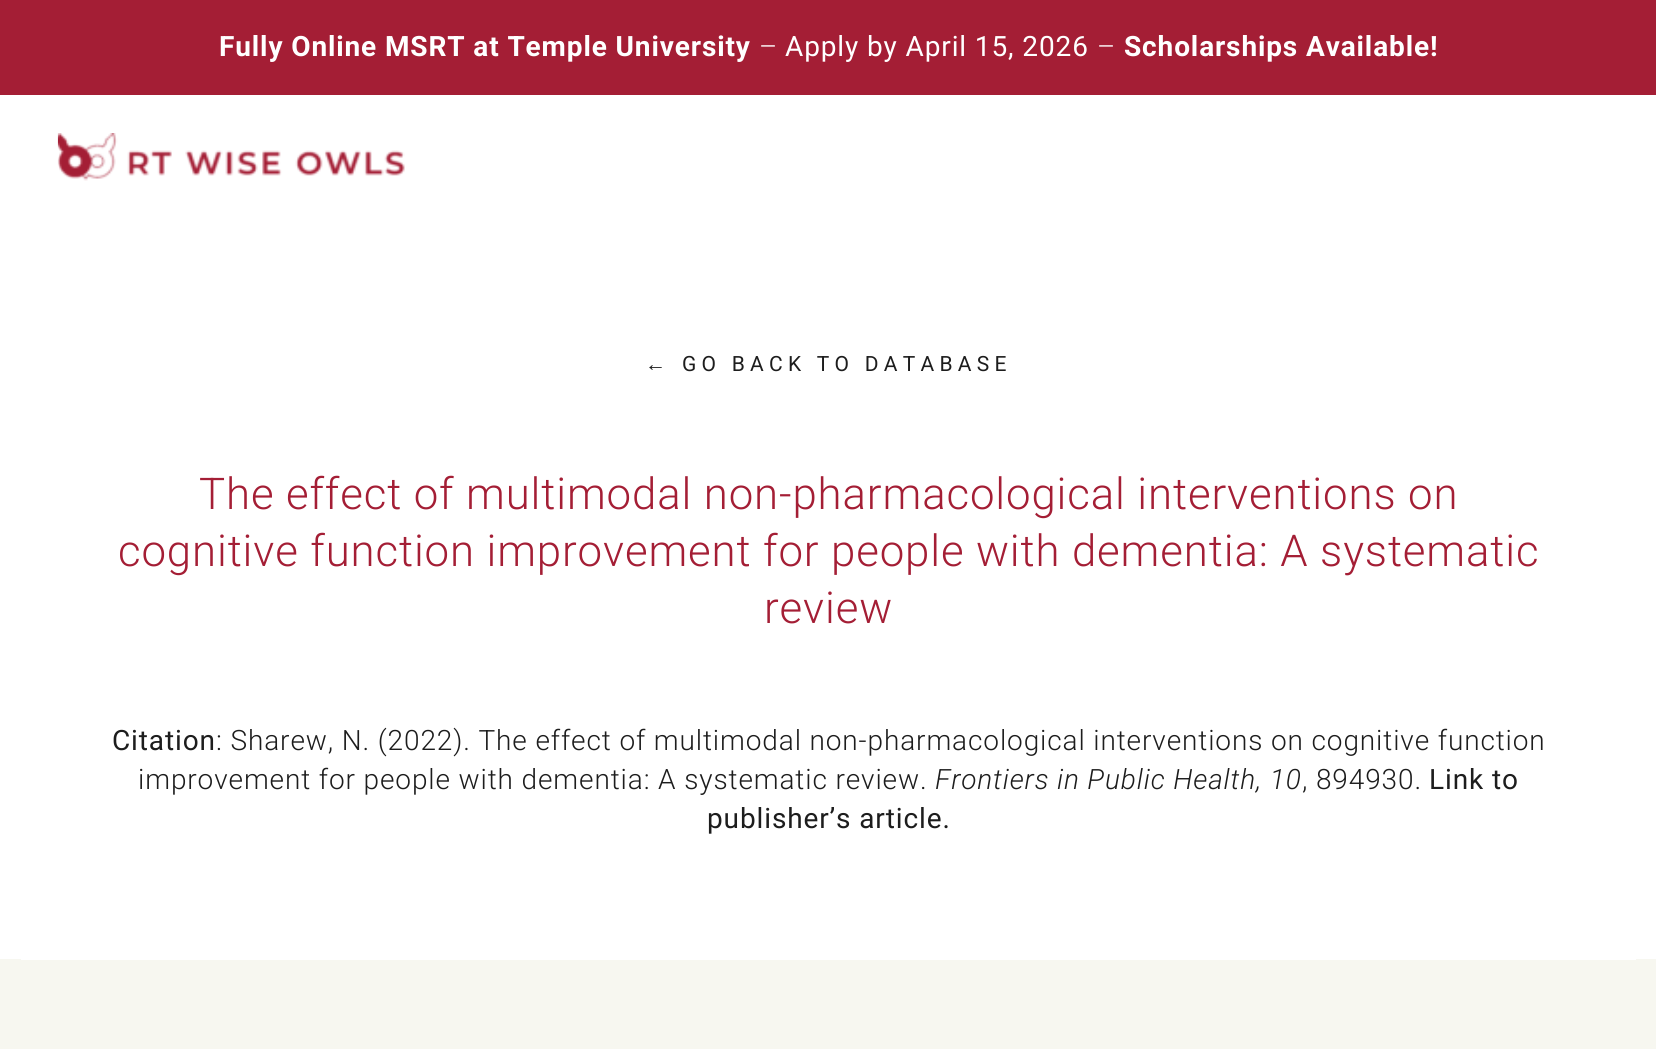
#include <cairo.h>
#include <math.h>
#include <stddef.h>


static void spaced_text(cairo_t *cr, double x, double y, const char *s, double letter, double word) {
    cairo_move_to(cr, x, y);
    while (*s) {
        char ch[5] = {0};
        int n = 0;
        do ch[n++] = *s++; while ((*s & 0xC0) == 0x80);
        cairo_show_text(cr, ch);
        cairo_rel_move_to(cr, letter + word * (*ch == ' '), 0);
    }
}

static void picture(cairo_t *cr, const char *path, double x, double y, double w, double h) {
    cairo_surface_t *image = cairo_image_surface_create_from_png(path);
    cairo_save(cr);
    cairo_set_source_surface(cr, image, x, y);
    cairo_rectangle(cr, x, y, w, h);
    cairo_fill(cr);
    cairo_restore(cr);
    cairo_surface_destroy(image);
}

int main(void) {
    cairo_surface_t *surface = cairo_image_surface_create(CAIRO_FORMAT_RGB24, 1656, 1049);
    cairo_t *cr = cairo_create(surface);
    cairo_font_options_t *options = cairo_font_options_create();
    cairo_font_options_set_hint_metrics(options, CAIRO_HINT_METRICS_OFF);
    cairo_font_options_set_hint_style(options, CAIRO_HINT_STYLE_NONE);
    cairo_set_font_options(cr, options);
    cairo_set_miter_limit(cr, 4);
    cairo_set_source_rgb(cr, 1, 1, 1);
    cairo_paint(cr);
    cairo_set_source_rgb(cr, 0.643, 0.118, 0.208);
    cairo_rectangle(cr, 0, 0, 1656, 95);
    cairo_fill(cr);
    cairo_select_font_face(cr, "Roboto", CAIRO_FONT_SLANT_NORMAL, CAIRO_FONT_WEIGHT_BOLD);
    cairo_set_font_size(cr, 28);
    cairo_set_source_rgb(cr, 1, 1, 1);
    spaced_text(cr, 219, 56, "Fully Online MSRT at Temple University", 0.88, 0);
    cairo_select_font_face(cr, "Roboto Light", CAIRO_FONT_SLANT_NORMAL, CAIRO_FONT_WEIGHT_NORMAL);
    spaced_text(cr, 759, 56, "–", 0.88, 0);
    cairo_select_font_face(cr, "Roboto", CAIRO_FONT_SLANT_NORMAL, CAIRO_FONT_WEIGHT_NORMAL);
    spaced_text(cr, 785, 56, "Apply by April 15, 2026", 0.88, 0);
    cairo_select_font_face(cr, "Roboto Light", CAIRO_FONT_SLANT_NORMAL, CAIRO_FONT_WEIGHT_NORMAL);
    spaced_text(cr, 1097, 56, "–", 0.88, 0);
    cairo_select_font_face(cr, "Roboto", CAIRO_FONT_SLANT_NORMAL, CAIRO_FONT_WEIGHT_BOLD);
    spaced_text(cr, 1124, 56, "Scholarships Available!", 0.88, 0);
    picture(cr, "img1.png", 57, 133, 348, 48);
    cairo_select_font_face(cr, "Liberation Sans", CAIRO_FONT_SLANT_NORMAL, CAIRO_FONT_WEIGHT_NORMAL);
    cairo_set_font_size(cr, 21);
    cairo_set_source_rgb(cr, 0.114, 0.114, 0.114);
    spaced_text(cr, 645, 371, "←", 5.25, 0);
    cairo_select_font_face(cr, "Roboto", CAIRO_FONT_SLANT_NORMAL, CAIRO_FONT_WEIGHT_NORMAL);
    spaced_text(cr, 682, 371, "GO BACK TO DATABASE", 5.25, 0);
    cairo_select_font_face(cr, "Roboto Light", CAIRO_FONT_SLANT_NORMAL, CAIRO_FONT_WEIGHT_NORMAL);
    cairo_set_font_size(cr, 43.75);
    cairo_set_source_rgb(cr, 0.643, 0.118, 0.208);
    spaced_text(cr, 199, 509, "The effect of multimodal non-pharmacological interventions on", 0.88, 0);
    spaced_text(cr, 118, 566, "cognitive function improvement for people with dementia: A systematic", 0.88, 0);
    spaced_text(cr, 764, 623, "review", 0.88, 0);
    cairo_select_font_face(cr, "Roboto", CAIRO_FONT_SLANT_NORMAL, CAIRO_FONT_WEIGHT_NORMAL);
    cairo_set_font_size(cr, 28);
    cairo_set_source_rgb(cr, 0.114, 0.114, 0.114);
    spaced_text(cr, 112, 750, "Citation", 0.88, 0);
    cairo_select_font_face(cr, "Roboto Light", CAIRO_FONT_SLANT_NORMAL, CAIRO_FONT_WEIGHT_NORMAL);
    spaced_text(cr, 216, 750, ": Sharew, N. (2022). The effect of multimodal non-pharmacological interventions on cognitive function", 0.88, 0);
    spaced_text(cr, 138, 789, "improvement for people with dementia: A systematic review.", 0.88, 0);
    cairo_select_font_face(cr, "Roboto Light", CAIRO_FONT_SLANT_ITALIC, CAIRO_FONT_WEIGHT_NORMAL);
    spaced_text(cr, 935, 789, "Frontiers in Public Health, 10", 0.88, 0);
    cairo_select_font_face(cr, "Roboto Light", CAIRO_FONT_SLANT_NORMAL, CAIRO_FONT_WEIGHT_NORMAL);
    spaced_text(cr, 1302, 789, ", 894930.", 0.88, 0);
    cairo_select_font_face(cr, "Roboto", CAIRO_FONT_SLANT_NORMAL, CAIRO_FONT_WEIGHT_NORMAL);
    spaced_text(cr, 1429, 789, "Link to", 0.88, 0);
    spaced_text(cr, 707, 828, "publisher’s article.", 0.88, 0);
    cairo_set_source_rgb(cr, 0.965, 0.965, 0.941);
    cairo_rectangle(cr, 0, 959, 1656, 90);
    cairo_fill(cr);
    cairo_set_source_rgb(cr, 1, 1, 1);
    cairo_rectangle(cr, 21, 959, 1615, 1);
    cairo_fill(cr);
    cairo_surface_write_to_png(surface, "page.png");
    cairo_font_options_destroy(options);
    cairo_destroy(cr);
    cairo_surface_destroy(surface);
    return 0;
}
